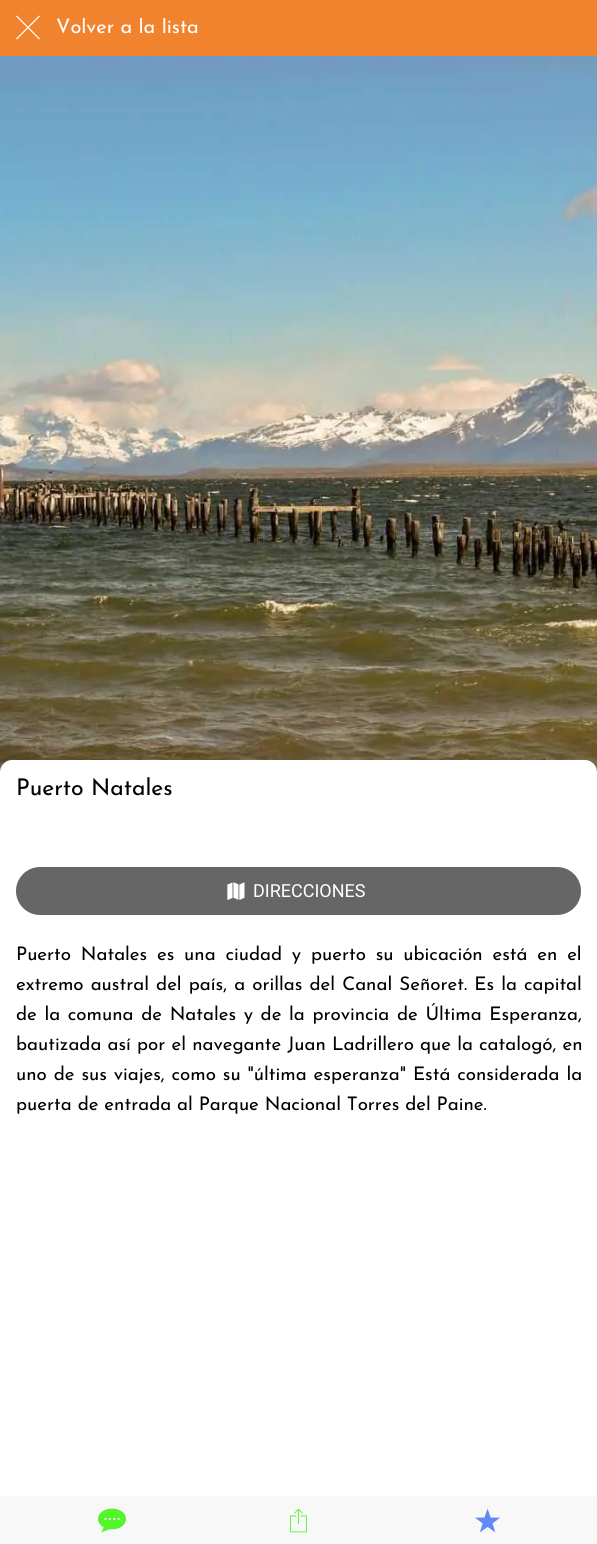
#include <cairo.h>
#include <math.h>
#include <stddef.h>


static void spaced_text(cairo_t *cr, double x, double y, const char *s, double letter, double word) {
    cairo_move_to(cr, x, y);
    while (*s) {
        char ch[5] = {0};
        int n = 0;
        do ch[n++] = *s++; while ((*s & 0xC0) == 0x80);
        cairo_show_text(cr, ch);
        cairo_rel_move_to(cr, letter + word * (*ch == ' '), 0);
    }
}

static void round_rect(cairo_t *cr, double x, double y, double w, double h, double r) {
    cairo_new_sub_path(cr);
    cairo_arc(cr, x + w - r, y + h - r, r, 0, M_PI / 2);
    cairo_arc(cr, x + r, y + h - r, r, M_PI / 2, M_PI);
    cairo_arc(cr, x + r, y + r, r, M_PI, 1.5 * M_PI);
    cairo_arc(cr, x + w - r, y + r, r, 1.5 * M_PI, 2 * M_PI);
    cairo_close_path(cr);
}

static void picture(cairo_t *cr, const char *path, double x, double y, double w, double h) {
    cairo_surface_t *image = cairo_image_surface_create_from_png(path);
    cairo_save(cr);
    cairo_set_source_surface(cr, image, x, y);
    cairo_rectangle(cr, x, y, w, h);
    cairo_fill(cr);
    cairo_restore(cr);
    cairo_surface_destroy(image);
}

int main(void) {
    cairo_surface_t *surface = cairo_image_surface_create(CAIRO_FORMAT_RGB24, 597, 1544);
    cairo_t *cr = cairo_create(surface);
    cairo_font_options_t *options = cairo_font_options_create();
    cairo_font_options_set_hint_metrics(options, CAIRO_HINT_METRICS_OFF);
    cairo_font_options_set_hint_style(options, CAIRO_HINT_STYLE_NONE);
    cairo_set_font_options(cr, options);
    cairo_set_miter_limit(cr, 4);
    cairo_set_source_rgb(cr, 1, 1, 1);
    cairo_paint(cr);
    cairo_set_source_rgb(cr, 0.949, 0.514, 0.18);
    cairo_rectangle(cr, 0, 0, 597, 56);
    cairo_fill(cr);
    picture(cr, "img1.png", 16, 15, 24, 25);
    cairo_save(cr);
    cairo_rectangle(cr, 56, 18, 525, 20);
    cairo_clip(cr);
    cairo_select_font_face(cr, "Josefin Sans Thin", CAIRO_FONT_SLANT_NORMAL, CAIRO_FONT_WEIGHT_NORMAL);
    cairo_set_font_size(cr, 20);
    cairo_set_source_rgb(cr, 1, 1, 1);
    cairo_move_to(cr, 56, 33);
    cairo_show_text(cr, "Volver a la lista");
    cairo_restore(cr);
    picture(cr, "img2.png", 0, 56, 597, 716);
    cairo_set_source_rgb(cr, 1, 1, 1);
    cairo_new_path(cr);
    cairo_move_to(cr, 12, 760);
    cairo_line_to(cr, 585, 760);
    cairo_curve_to(cr, 591.5, 760, 597, 765.5, 597, 772);
    cairo_line_to(cr, 597, 1488);
    cairo_line_to(cr, 0, 1488);
    cairo_line_to(cr, 0, 772);
    cairo_curve_to(cr, 0, 765.5, 5.5, 760, 12, 760);
    cairo_close_path(cr);
    cairo_fill(cr);
    cairo_select_font_face(cr, "Josefin Sans Thin", CAIRO_FONT_SLANT_NORMAL, CAIRO_FONT_WEIGHT_NORMAL);
    cairo_set_font_size(cr, 23);
    cairo_set_source_rgb(cr, 0, 0, 0);
    cairo_move_to(cr, 16, 795);
    cairo_show_text(cr, "Puerto Natales");
    cairo_set_source_rgb(cr, 0.4, 0.4, 0.4);
    round_rect(cr, 16, 867, 565, 48, 24);
    cairo_fill(cr);
    picture(cr, "img3.png", 227, 882, 18, 18);
    cairo_select_font_face(cr, "Roboto", CAIRO_FONT_SLANT_NORMAL, CAIRO_FONT_WEIGHT_NORMAL);
    cairo_set_font_size(cr, 18);
    cairo_set_source_rgb(cr, 1, 1, 1);
    cairo_move_to(cr, 253, 897);
    cairo_show_text(cr, "DIRECCIONES");
    cairo_select_font_face(cr, "Josefin Sans Thin", CAIRO_FONT_SLANT_NORMAL, CAIRO_FONT_WEIGHT_NORMAL);
    cairo_set_font_size(cr, 18.7);
    cairo_set_source_rgb(cr, 0, 0, 0);
    spaced_text(cr, 16, 960, "Puerto Natales es una ciudad y puerto su ubicación está en el", 0, 3.9);
    spaced_text(cr, 16, 990, "extremo austral del país, a orillas del Canal Señoret. Es la capital", 0, 1.25);
    spaced_text(cr, 16, 1020, "de la comuna de Natales y de la provincia de Última Esperanza,", 0, 1.75);
    spaced_text(cr, 16, 1050, "bautizada así por el navegante Juan Ladrillero que la catalogó, en", 0, 0.25);
    spaced_text(cr, 16, 1080, "uno de sus viajes, como su \"última esperanza\" Está considerada la", 0, 1);
    cairo_move_to(cr, 16, 1110);
    cairo_show_text(cr, "puerta de entrada al Parque Nacional Torres del Paine.");
    cairo_set_source_rgb(cr, 0.969, 0.969, 0.969);
    cairo_rectangle(cr, 0, 1496, 597, 48);
    cairo_fill(cr);
    picture(cr, "img4.png", 98, 1508, 29, 25);
    picture(cr, "img5.png", 290, 1508, 17, 25);
    picture(cr, "img6.png", 475, 1508, 25, 25);
    cairo_surface_write_to_png(surface, "page.png");
    cairo_font_options_destroy(options);
    cairo_destroy(cr);
    cairo_surface_destroy(surface);
    return 0;
}
